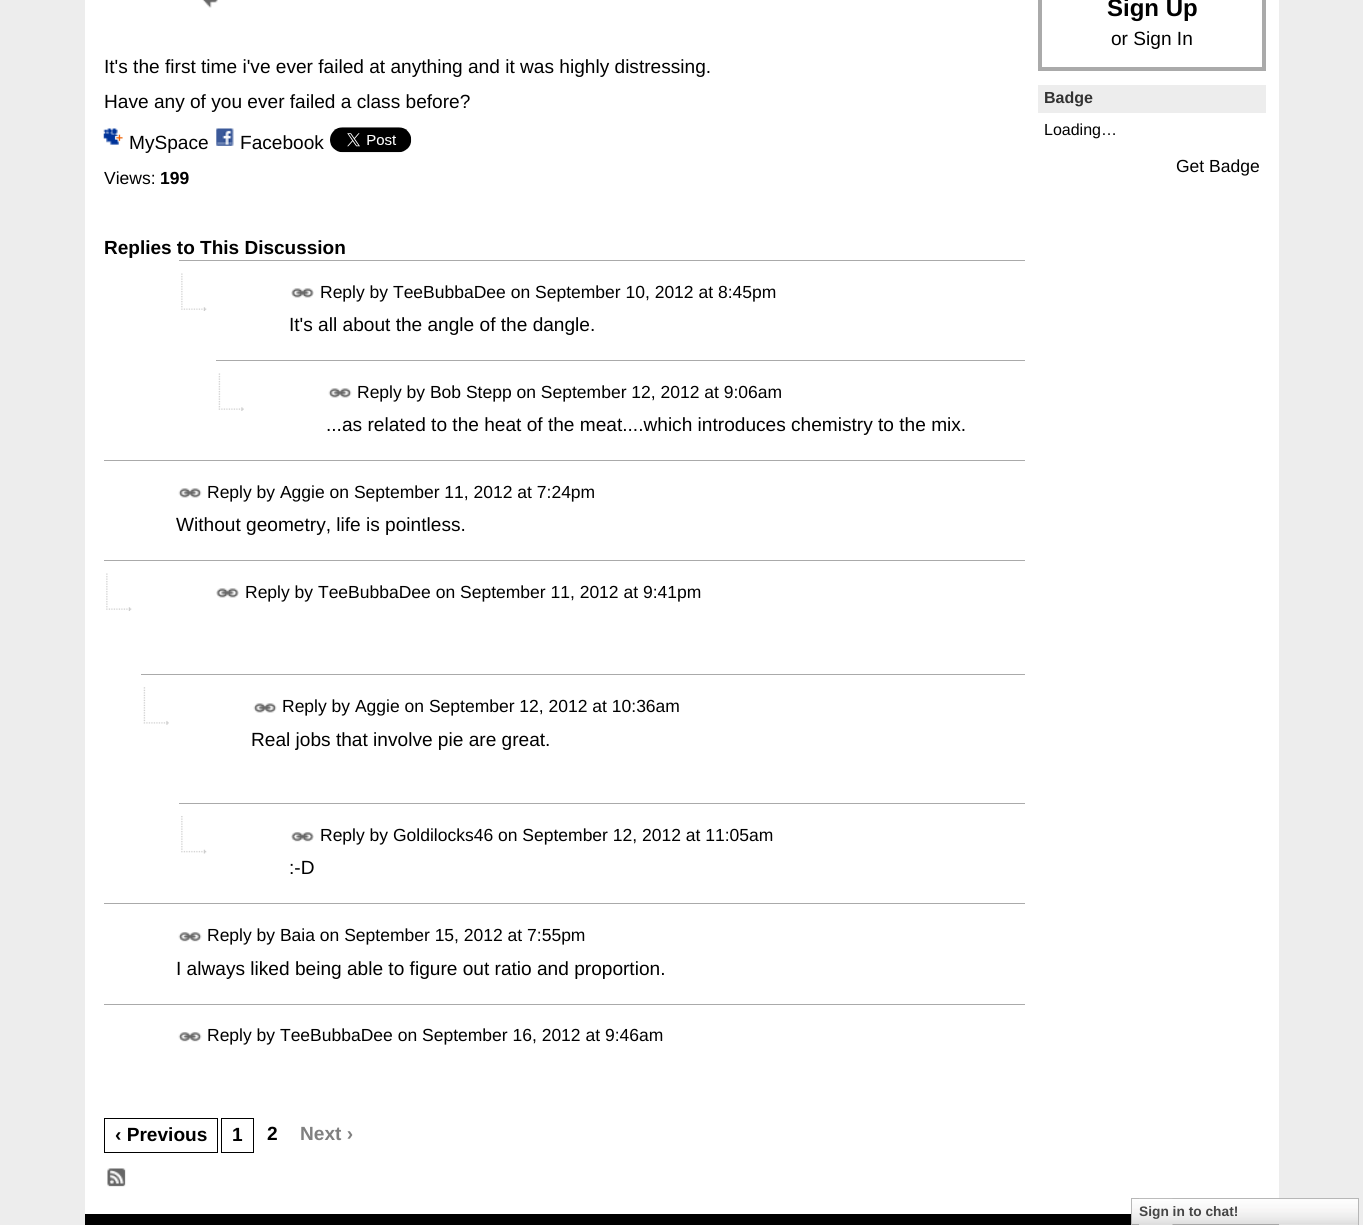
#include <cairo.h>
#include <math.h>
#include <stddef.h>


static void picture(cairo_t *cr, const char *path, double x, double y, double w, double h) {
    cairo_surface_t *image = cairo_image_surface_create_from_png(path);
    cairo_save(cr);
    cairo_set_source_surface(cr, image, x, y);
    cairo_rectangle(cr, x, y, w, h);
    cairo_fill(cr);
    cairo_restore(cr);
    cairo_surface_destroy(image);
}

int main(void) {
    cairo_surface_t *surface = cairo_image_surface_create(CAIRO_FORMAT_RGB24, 1363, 1225);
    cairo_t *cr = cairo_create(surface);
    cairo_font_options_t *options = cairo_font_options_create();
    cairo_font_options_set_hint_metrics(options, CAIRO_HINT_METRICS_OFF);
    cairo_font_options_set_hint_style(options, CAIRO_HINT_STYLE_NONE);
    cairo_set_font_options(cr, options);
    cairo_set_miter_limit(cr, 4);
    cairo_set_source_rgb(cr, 0.929, 0.929, 0.929);
    cairo_paint(cr);
    cairo_set_source_rgb(cr, 1, 1, 1);
    cairo_rectangle(cr, 85, 0, 1194, 1214);
    cairo_fill(cr);
    picture(cr, "img1.png", 202, 0, 16, 8);
    cairo_select_font_face(cr, "Liberation Sans", CAIRO_FONT_SLANT_NORMAL, CAIRO_FONT_WEIGHT_NORMAL);
    cairo_set_font_size(cr, 19.1);
    cairo_set_source_rgb(cr, 0, 0, 0);
    cairo_move_to(cr, 104, 73);
    cairo_show_text(cr, "It's the first time i've ever failed at anything and it was highly distressing.");
    cairo_move_to(cr, 104, 108);
    cairo_show_text(cr, "Have any of you ever failed a class before?");
    picture(cr, "img2.png", 103, 128, 20, 17);
    cairo_move_to(cr, 129, 149);
    cairo_show_text(cr, "MySpace");
    picture(cr, "img3.png", 216, 128, 18, 18);
    cairo_move_to(cr, 240, 149);
    cairo_show_text(cr, "Facebook");
    picture(cr, "img4.png", 330, 127, 82, 26);
    cairo_set_font_size(cr, 17.5);
    cairo_move_to(cr, 104, 184);
    cairo_show_text(cr, "Views:");
    cairo_select_font_face(cr, "Liberation Sans", CAIRO_FONT_SLANT_NORMAL, CAIRO_FONT_WEIGHT_BOLD);
    cairo_move_to(cr, 160, 184);
    cairo_show_text(cr, "199");
    cairo_set_font_size(cr, 19);
    cairo_move_to(cr, 104, 254);
    cairo_show_text(cr, "Replies to This Discussion");
    picture(cr, "img5.png", 181, 273, 26, 38);
    cairo_set_source_rgb(cr, 0.667, 0.667, 0.667);
    cairo_rectangle(cr, 179, 260, 846, 1);
    cairo_fill(cr);
    picture(cr, "img6.png", 291, 288, 23, 10);
    cairo_select_font_face(cr, "Liberation Sans", CAIRO_FONT_SLANT_NORMAL, CAIRO_FONT_WEIGHT_NORMAL);
    cairo_set_font_size(cr, 17.5);
    cairo_set_source_rgb(cr, 0, 0, 0);
    cairo_move_to(cr, 320, 298);
    cairo_show_text(cr, "Reply by TeeBubbaDee on September 10, 2012 at 8:45pm");
    cairo_set_font_size(cr, 19.1);
    cairo_move_to(cr, 289, 331);
    cairo_show_text(cr, "It's all about the angle of the dangle.");
    picture(cr, "img7.png", 218, 373, 26, 38);
    cairo_set_source_rgb(cr, 0.667, 0.667, 0.667);
    cairo_rectangle(cr, 216, 360, 809, 1);
    cairo_fill(cr);
    picture(cr, "img8.png", 328, 388, 24, 10);
    cairo_set_font_size(cr, 17.5);
    cairo_set_source_rgb(cr, 0, 0, 0);
    cairo_move_to(cr, 357, 398);
    cairo_show_text(cr, "Reply by Bob Stepp on September 12, 2012 at 9:06am");
    cairo_set_font_size(cr, 19.1);
    cairo_move_to(cr, 326, 431);
    cairo_show_text(cr, "...as related to the heat of the meat....which introduces chemistry to the mix.");
    cairo_set_source_rgb(cr, 0.667, 0.667, 0.667);
    cairo_rectangle(cr, 104, 460, 921, 1);
    cairo_fill(cr);
    picture(cr, "img8.png", 178, 488, 24, 10);
    cairo_set_font_size(cr, 17.5);
    cairo_set_source_rgb(cr, 0, 0, 0);
    cairo_move_to(cr, 207, 498);
    cairo_show_text(cr, "Reply by Aggie on September 11, 2012 at 7:24pm");
    cairo_set_font_size(cr, 19.1);
    cairo_move_to(cr, 176, 531);
    cairo_show_text(cr, "Without geometry, life is pointless.");
    picture(cr, "img9.png", 106, 573, 26, 38);
    cairo_set_source_rgb(cr, 0.667, 0.667, 0.667);
    cairo_rectangle(cr, 104, 560, 921, 1);
    cairo_fill(cr);
    picture(cr, "img6.png", 216, 588, 23, 10);
    cairo_set_font_size(cr, 17.5);
    cairo_set_source_rgb(cr, 0, 0, 0);
    cairo_move_to(cr, 245, 598);
    cairo_show_text(cr, "Reply by TeeBubbaDee on September 11, 2012 at 9:41pm");
    picture(cr, "img10.png", 143, 687, 26, 38);
    cairo_set_source_rgb(cr, 0.667, 0.667, 0.667);
    cairo_rectangle(cr, 141, 674, 884, 1);
    cairo_fill(cr);
    picture(cr, "img8.png", 253, 703, 24, 10);
    cairo_set_source_rgb(cr, 0, 0, 0);
    cairo_move_to(cr, 282, 712);
    cairo_show_text(cr, "Reply by Aggie on September 12, 2012 at 10:36am");
    cairo_set_font_size(cr, 19.1);
    cairo_move_to(cr, 251, 746);
    cairo_show_text(cr, "Real jobs that involve pie are great.");
    picture(cr, "img11.png", 181, 816, 26, 38);
    cairo_set_source_rgb(cr, 0.667, 0.667, 0.667);
    cairo_rectangle(cr, 179, 803, 846, 1);
    cairo_fill(cr);
    picture(cr, "img12.png", 291, 832, 23, 10);
    cairo_set_font_size(cr, 17.5);
    cairo_set_source_rgb(cr, 0, 0, 0);
    cairo_move_to(cr, 320, 841);
    cairo_show_text(cr, "Reply by Goldilocks46 on September 12, 2012 at 11:05am");
    cairo_set_font_size(cr, 19.1);
    cairo_move_to(cr, 289, 874);
    cairo_show_text(cr, ":-D");
    cairo_set_source_rgb(cr, 0.667, 0.667, 0.667);
    cairo_rectangle(cr, 104, 903, 921, 1);
    cairo_fill(cr);
    picture(cr, "img13.png", 178, 932, 24, 10);
    cairo_set_font_size(cr, 17.5);
    cairo_set_source_rgb(cr, 0, 0, 0);
    cairo_move_to(cr, 207, 941);
    cairo_show_text(cr, "Reply by Baia on September 15, 2012 at 7:55pm");
    cairo_set_font_size(cr, 19.1);
    cairo_move_to(cr, 176, 975);
    cairo_show_text(cr, "I always liked being able to figure out ratio and proportion.");
    cairo_set_source_rgb(cr, 0.667, 0.667, 0.667);
    cairo_rectangle(cr, 104, 1004, 921, 1);
    cairo_fill(cr);
    picture(cr, "img13.png", 178, 1032, 24, 10);
    cairo_set_font_size(cr, 17.5);
    cairo_set_source_rgb(cr, 0, 0, 0);
    cairo_move_to(cr, 207, 1041);
    cairo_show_text(cr, "Reply by TeeBubbaDee on September 16, 2012 at 9:46am");
    cairo_rectangle(cr, 104.5, 1118.5, 113, 34);
    cairo_set_line_width(cr, 1);
    cairo_stroke(cr);
    cairo_select_font_face(cr, "Liberation Sans", CAIRO_FONT_SLANT_NORMAL, CAIRO_FONT_WEIGHT_BOLD);
    cairo_set_font_size(cr, 19.1);
    cairo_move_to(cr, 115, 1141);
    cairo_show_text(cr, "‹ Previous");
    cairo_rectangle(cr, 221.5, 1118.5, 32, 34);
    cairo_stroke(cr);
    cairo_move_to(cr, 232, 1141);
    cairo_show_text(cr, "1");
    cairo_move_to(cr, 267, 1140);
    cairo_show_text(cr, "2");
    cairo_set_source_rgb(cr, 0.502, 0.502, 0.502);
    cairo_move_to(cr, 300, 1140);
    cairo_show_text(cr, "Next ›");
    picture(cr, "img14.png", 107, 1168, 19, 19);
    cairo_rectangle(cr, 1040, -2, 224, 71);
    cairo_set_source_rgb(cr, 0.667, 0.667, 0.667);
    cairo_set_line_width(cr, 4);
    cairo_stroke(cr);
    cairo_set_font_size(cr, 24);
    cairo_set_source_rgb(cr, 0, 0, 0);
    cairo_move_to(cr, 1107, 16);
    cairo_show_text(cr, "Sign Up");
    cairo_select_font_face(cr, "Liberation Sans", CAIRO_FONT_SLANT_NORMAL, CAIRO_FONT_WEIGHT_NORMAL);
    cairo_set_font_size(cr, 19.1);
    cairo_move_to(cr, 1111, 45);
    cairo_show_text(cr, "or Sign In");
    cairo_set_source_rgb(cr, 0.929, 0.929, 0.929);
    cairo_rectangle(cr, 1038, 85, 228, 28);
    cairo_fill(cr);
    cairo_select_font_face(cr, "Liberation Sans", CAIRO_FONT_SLANT_NORMAL, CAIRO_FONT_WEIGHT_BOLD);
    cairo_set_font_size(cr, 16);
    cairo_set_source_rgb(cr, 0.2, 0.2, 0.2);
    cairo_move_to(cr, 1044, 103);
    cairo_show_text(cr, "Badge");
    cairo_select_font_face(cr, "Liberation Sans", CAIRO_FONT_SLANT_NORMAL, CAIRO_FONT_WEIGHT_NORMAL);
    cairo_set_source_rgb(cr, 0, 0, 0);
    cairo_move_to(cr, 1044, 135);
    cairo_show_text(cr, "Loading…");
    cairo_set_font_size(cr, 17.5);
    cairo_move_to(cr, 1176, 172);
    cairo_show_text(cr, "Get Badge");
    cairo_rectangle(cr, 85, 1214, 1194, 11);
    cairo_fill(cr);
    picture(cr, "img15.png", 1132, 1199, 226, 26);
    cairo_rectangle(cr, 1131.5, 1198.5, 227, 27);
    cairo_set_source_rgb(cr, 0.718, 0.718, 0.718);
    cairo_set_line_width(cr, 1);
    cairo_stroke(cr);
    picture(cr, "img16.png", 1139, 1198, 34, 27);
    cairo_select_font_face(cr, "Liberation Sans", CAIRO_FONT_SLANT_NORMAL, CAIRO_FONT_WEIGHT_BOLD);
    cairo_set_font_size(cr, 13.75);
    cairo_set_source_rgb(cr, 0.271, 0.271, 0.271);
    cairo_move_to(cr, 1139, 1216);
    cairo_show_text(cr, "Sign in to chat!");
    cairo_surface_write_to_png(surface, "page.png");
    cairo_font_options_destroy(options);
    cairo_destroy(cr);
    cairo_surface_destroy(surface);
    return 0;
}
